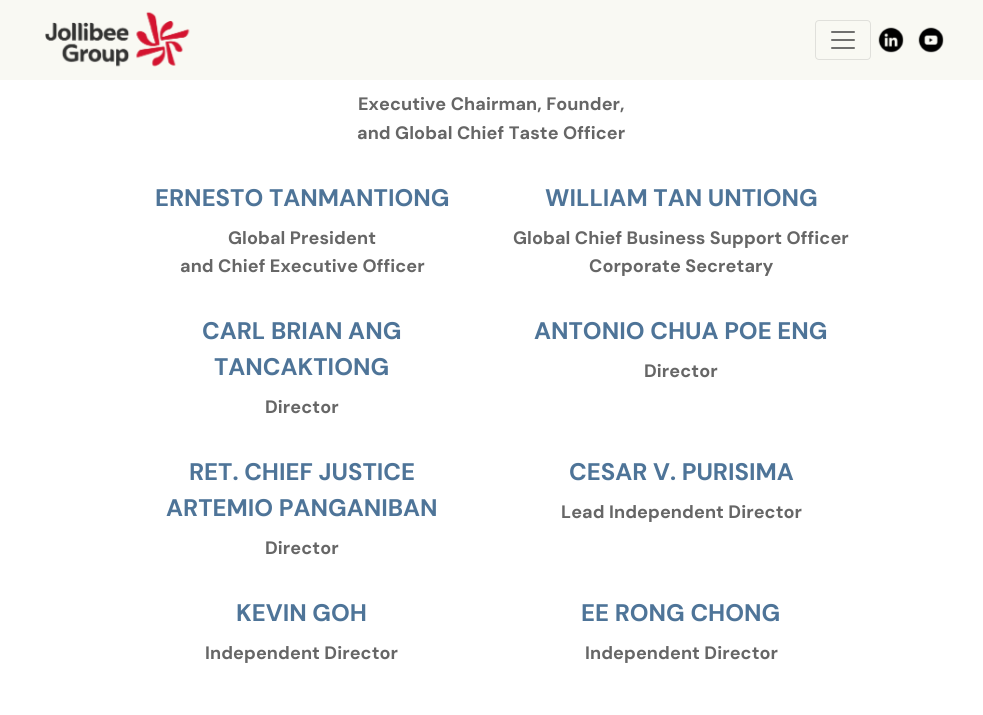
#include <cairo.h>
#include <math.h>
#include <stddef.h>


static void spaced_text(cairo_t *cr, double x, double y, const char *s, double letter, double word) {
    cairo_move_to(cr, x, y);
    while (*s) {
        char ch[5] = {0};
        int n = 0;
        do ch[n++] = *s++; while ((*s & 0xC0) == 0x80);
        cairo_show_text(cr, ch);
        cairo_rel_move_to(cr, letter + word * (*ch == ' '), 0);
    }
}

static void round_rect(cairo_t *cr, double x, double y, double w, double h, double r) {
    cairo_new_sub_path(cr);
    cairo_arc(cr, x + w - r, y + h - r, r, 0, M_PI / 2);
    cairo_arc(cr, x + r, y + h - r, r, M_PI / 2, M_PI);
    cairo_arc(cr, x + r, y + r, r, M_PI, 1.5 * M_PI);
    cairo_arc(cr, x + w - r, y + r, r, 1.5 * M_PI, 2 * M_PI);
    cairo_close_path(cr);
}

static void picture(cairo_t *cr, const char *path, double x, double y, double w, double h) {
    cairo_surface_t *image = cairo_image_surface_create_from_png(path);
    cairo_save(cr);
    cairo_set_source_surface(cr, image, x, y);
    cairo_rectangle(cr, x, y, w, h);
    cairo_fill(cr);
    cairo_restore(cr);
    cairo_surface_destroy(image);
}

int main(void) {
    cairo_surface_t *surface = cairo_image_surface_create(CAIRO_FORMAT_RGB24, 983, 715);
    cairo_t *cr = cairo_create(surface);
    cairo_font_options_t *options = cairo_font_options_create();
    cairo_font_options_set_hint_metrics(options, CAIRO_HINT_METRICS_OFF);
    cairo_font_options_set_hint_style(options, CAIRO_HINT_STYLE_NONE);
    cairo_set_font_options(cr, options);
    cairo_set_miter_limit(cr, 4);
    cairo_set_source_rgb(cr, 1, 1, 1);
    cairo_paint(cr);
    cairo_set_source_rgb(cr, 0.976, 0.976, 0.953);
    cairo_rectangle(cr, 0, 0, 983, 80);
    cairo_fill(cr);
    picture(cr, "img1.png", 45, 11, 145, 56);
    round_rect(cr, 815.5, 20.5, 55, 39, 3.5);
    cairo_set_source_rgb(cr, 0.878, 0.878, 0.859);
    cairo_set_line_width(cr, 1);
    cairo_stroke(cr);
    picture(cr, "img2.png", 831, 31, 24, 18);
    picture(cr, "img3.png", 878, 27, 26, 26);
    picture(cr, "img4.png", 918, 27, 26, 26);
    cairo_select_font_face(cr, "DM Sans", CAIRO_FONT_SLANT_NORMAL, CAIRO_FONT_WEIGHT_BOLD);
    cairo_set_font_size(cr, 18);
    cairo_set_source_rgb(cr, 0.4, 0.4, 0.4);
    spaced_text(cr, 358, 110, "Executive Chairman, Founder,", 0.1, 0);
    spaced_text(cr, 357, 139, "and Global Chief Taste Officer", 0.1, 0);
    cairo_set_font_size(cr, 24);
    cairo_set_source_rgb(cr, 0.306, 0.455, 0.596);
    cairo_move_to(cr, 155, 206);
    cairo_show_text(cr, "ERNESTO TANMANTIONG");
    cairo_set_font_size(cr, 18);
    cairo_set_source_rgb(cr, 0.4, 0.4, 0.4);
    spaced_text(cr, 228, 244, "Global President", 0.1, 0);
    spaced_text(cr, 180, 272, "and Chief Executive Officer", 0.1, 0);
    cairo_set_font_size(cr, 24);
    cairo_set_source_rgb(cr, 0.306, 0.455, 0.596);
    cairo_move_to(cr, 545, 206);
    cairo_show_text(cr, "WILLIAM TAN UNTIONG");
    cairo_set_font_size(cr, 18);
    cairo_set_source_rgb(cr, 0.4, 0.4, 0.4);
    spaced_text(cr, 513, 244, "Global Chief Business Support Officer", 0.1, 0);
    spaced_text(cr, 589, 272, "Corporate Secretary", 0.1, 0);
    cairo_set_font_size(cr, 24);
    cairo_set_source_rgb(cr, 0.306, 0.455, 0.596);
    cairo_move_to(cr, 202, 339);
    cairo_show_text(cr, "CARL BRIAN ANG");
    cairo_move_to(cr, 214, 375);
    cairo_show_text(cr, "TANCAKTIONG");
    cairo_set_font_size(cr, 18);
    cairo_set_source_rgb(cr, 0.4, 0.4, 0.4);
    spaced_text(cr, 265, 413, "Director", 0.1, 0);
    cairo_set_font_size(cr, 24);
    cairo_set_source_rgb(cr, 0.306, 0.455, 0.596);
    cairo_move_to(cr, 534, 339);
    cairo_show_text(cr, "ANTONIO CHUA POE ENG");
    cairo_set_font_size(cr, 18);
    cairo_set_source_rgb(cr, 0.4, 0.4, 0.4);
    spaced_text(cr, 644, 377, "Director", 0.1, 0);
    cairo_set_font_size(cr, 24);
    cairo_set_source_rgb(cr, 0.306, 0.455, 0.596);
    cairo_move_to(cr, 189, 480);
    cairo_show_text(cr, "RET. CHIEF JUSTICE");
    cairo_move_to(cr, 166, 516);
    cairo_show_text(cr, "ARTEMIO PANGANIBAN");
    cairo_set_font_size(cr, 18);
    cairo_set_source_rgb(cr, 0.4, 0.4, 0.4);
    spaced_text(cr, 265, 554, "Director", 0.1, 0);
    cairo_set_font_size(cr, 24);
    cairo_set_source_rgb(cr, 0.306, 0.455, 0.596);
    cairo_move_to(cr, 569, 480);
    cairo_show_text(cr, "CESAR V. PURISIMA");
    cairo_set_font_size(cr, 18);
    cairo_set_source_rgb(cr, 0.4, 0.4, 0.4);
    spaced_text(cr, 561, 518, "Lead Independent Director", 0.1, 0);
    cairo_set_font_size(cr, 24);
    cairo_set_source_rgb(cr, 0.306, 0.455, 0.596);
    cairo_move_to(cr, 236, 621);
    cairo_show_text(cr, "KEVIN GOH");
    cairo_set_font_size(cr, 18);
    cairo_set_source_rgb(cr, 0.4, 0.4, 0.4);
    spaced_text(cr, 205, 659, "Independent Director", 0.1, 0);
    cairo_set_font_size(cr, 24);
    cairo_set_source_rgb(cr, 0.306, 0.455, 0.596);
    cairo_move_to(cr, 581, 621);
    cairo_show_text(cr, "EE RONG CHONG");
    cairo_set_font_size(cr, 18);
    cairo_set_source_rgb(cr, 0.4, 0.4, 0.4);
    spaced_text(cr, 585, 659, "Independent Director", 0.1, 0);
    cairo_surface_write_to_png(surface, "page.png");
    cairo_font_options_destroy(options);
    cairo_destroy(cr);
    cairo_surface_destroy(surface);
    return 0;
}
